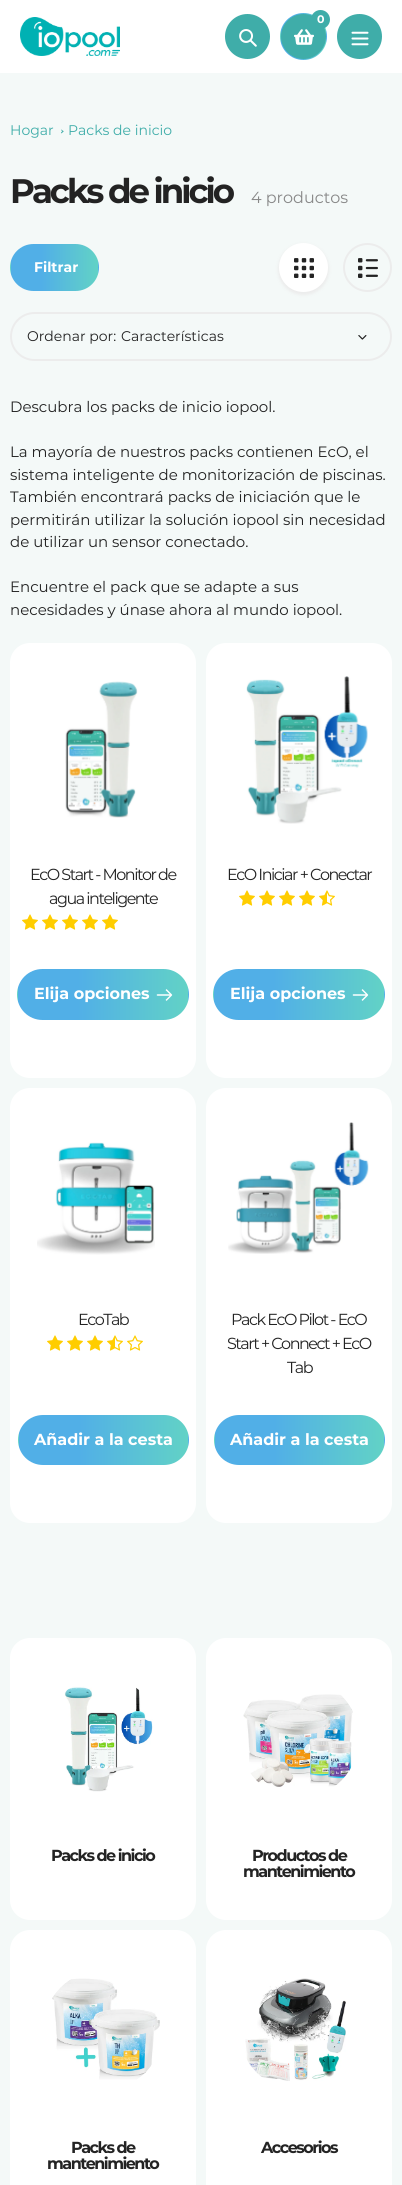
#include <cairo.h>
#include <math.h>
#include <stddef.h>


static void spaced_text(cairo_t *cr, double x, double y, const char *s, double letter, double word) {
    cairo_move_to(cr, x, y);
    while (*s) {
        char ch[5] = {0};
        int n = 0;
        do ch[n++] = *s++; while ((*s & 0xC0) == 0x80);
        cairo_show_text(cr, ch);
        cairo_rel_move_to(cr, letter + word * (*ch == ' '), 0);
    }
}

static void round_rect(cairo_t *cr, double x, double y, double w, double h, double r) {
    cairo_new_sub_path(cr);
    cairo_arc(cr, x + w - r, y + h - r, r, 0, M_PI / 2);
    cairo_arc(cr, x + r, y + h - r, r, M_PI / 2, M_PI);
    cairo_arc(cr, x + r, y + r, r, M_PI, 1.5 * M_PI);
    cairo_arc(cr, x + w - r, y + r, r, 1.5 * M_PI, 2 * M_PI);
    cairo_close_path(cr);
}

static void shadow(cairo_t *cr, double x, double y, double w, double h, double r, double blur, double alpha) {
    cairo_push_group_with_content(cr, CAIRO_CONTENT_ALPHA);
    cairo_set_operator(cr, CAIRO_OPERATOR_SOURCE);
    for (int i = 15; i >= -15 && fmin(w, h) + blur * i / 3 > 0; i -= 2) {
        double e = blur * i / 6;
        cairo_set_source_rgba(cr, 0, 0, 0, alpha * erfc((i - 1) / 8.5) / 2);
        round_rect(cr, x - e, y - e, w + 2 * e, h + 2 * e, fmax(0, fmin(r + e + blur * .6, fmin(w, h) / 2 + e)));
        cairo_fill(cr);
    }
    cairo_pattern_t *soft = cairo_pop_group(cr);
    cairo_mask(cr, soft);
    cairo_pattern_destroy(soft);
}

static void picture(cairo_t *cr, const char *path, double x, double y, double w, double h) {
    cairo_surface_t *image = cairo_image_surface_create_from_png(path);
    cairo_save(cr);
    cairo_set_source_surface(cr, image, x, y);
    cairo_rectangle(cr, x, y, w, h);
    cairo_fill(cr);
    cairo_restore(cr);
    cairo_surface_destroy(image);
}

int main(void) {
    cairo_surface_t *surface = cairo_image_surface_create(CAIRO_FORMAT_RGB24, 402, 2185);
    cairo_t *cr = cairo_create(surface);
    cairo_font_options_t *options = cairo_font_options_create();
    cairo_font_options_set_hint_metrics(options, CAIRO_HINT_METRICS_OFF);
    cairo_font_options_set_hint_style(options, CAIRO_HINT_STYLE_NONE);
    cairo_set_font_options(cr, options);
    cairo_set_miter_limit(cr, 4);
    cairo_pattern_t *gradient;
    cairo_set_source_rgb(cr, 0.957, 0.973, 0.969);
    cairo_paint(cr);
    cairo_set_source_rgb(cr, 1, 1, 1);
    cairo_rectangle(cr, 0, 0, 402, 73);
    cairo_fill(cr);
    picture(cr, "img1.png", 20, 17, 100, 39);
    cairo_set_source_rgb(cr, 0.247, 0.678, 0.663);
    cairo_arc(cr, 247.5, 36.5, 22.5, 0, 2 * M_PI);
    cairo_fill(cr);
    picture(cr, "img2.png", 239, 29, 18, 18);
    cairo_save(cr);
    round_rect(cr, 280, 13, 47, 47, 23.5);
    cairo_clip(cr);
    gradient = cairo_pattern_create_linear(236, 37, 281, 37);
    cairo_pattern_add_color_stop_rgba(gradient, 0.35, 0.318, 0.686, 0.906, 1);
    cairo_pattern_add_color_stop_rgba(gradient, 1, 0.384, 0.824, 0.776, 1);
    cairo_set_source(cr, gradient);
    cairo_pattern_destroy(gradient);
    cairo_rectangle(cr, 280, 30, 1, 13);
    cairo_fill(cr);
    gradient = cairo_pattern_create_linear(281, 37, 326, 37);
    cairo_pattern_add_color_stop_rgba(gradient, 0.35, 0.318, 0.686, 0.906, 1);
    cairo_pattern_add_color_stop_rgba(gradient, 1, 0.384, 0.824, 0.776, 1);
    cairo_set_source(cr, gradient);
    cairo_pattern_destroy(gradient);
    cairo_rectangle(cr, 281, 13, 45, 47);
    cairo_fill(cr);
    gradient = cairo_pattern_create_linear(326, 37, 371, 37);
    cairo_pattern_add_color_stop_rgba(gradient, 0.35, 0.318, 0.686, 0.906, 1);
    cairo_pattern_add_color_stop_rgba(gradient, 1, 0.384, 0.824, 0.776, 1);
    cairo_set_source(cr, gradient);
    cairo_pattern_destroy(gradient);
    cairo_rectangle(cr, 326, 30, 1, 13);
    cairo_fill(cr);
    cairo_restore(cr);
    cairo_arc(cr, 303.5, 36.5, 22.5, 0, 2 * M_PI);
    cairo_fill(cr);
    cairo_arc(cr, 320.5, 19.5, 9.5, 0, 2 * M_PI);
    cairo_fill(cr);
    cairo_select_font_face(cr, "Montserrat", CAIRO_FONT_SLANT_NORMAL, CAIRO_FONT_WEIGHT_BOLD);
    cairo_set_font_size(cr, 11);
    cairo_set_source_rgb(cr, 1, 1, 1);
    cairo_move_to(cr, 317, 23);
    cairo_show_text(cr, "0");
    picture(cr, "img3.png", 294, 29, 20, 16);
    cairo_set_source_rgb(cr, 0.247, 0.678, 0.663);
    cairo_arc(cr, 359.5, 36.5, 22.5, 0, 2 * M_PI);
    cairo_fill(cr);
    picture(cr, "img4.png", 351, 31, 18, 15);
    cairo_select_font_face(cr, "Montserrat", CAIRO_FONT_SLANT_NORMAL, CAIRO_FONT_WEIGHT_NORMAL);
    cairo_set_font_size(cr, 14);
    cairo_move_to(cr, 10, 135);
    cairo_show_text(cr, "Hogar");
    cairo_new_path(cr);
    cairo_move_to(cr, 61.5, 129.5);
    cairo_line_to(cr, 63.5, 131.5);
    cairo_line_to(cr, 63, 132);
    cairo_line_to(cr, 61, 130);
    cairo_close_path(cr);
    cairo_fill(cr);
    cairo_new_path(cr);
    cairo_move_to(cr, 63, 130.5);
    cairo_line_to(cr, 63.5, 131.5);
    cairo_line_to(cr, 61.5, 133.5);
    cairo_line_to(cr, 61, 132.5);
    cairo_close_path(cr);
    cairo_fill(cr);
    cairo_move_to(cr, 68, 135);
    cairo_show_text(cr, "Packs de inicio");
    cairo_select_font_face(cr, "Montserrat", CAIRO_FONT_SLANT_NORMAL, CAIRO_FONT_WEIGHT_BOLD);
    cairo_set_font_size(cr, 34);
    cairo_set_source_rgb(cr, 0.137, 0.137, 0.137);
    spaced_text(cr, 10, 203, "Packs de inicio", -3, 0);
    cairo_select_font_face(cr, "Montserrat", CAIRO_FONT_SLANT_NORMAL, CAIRO_FONT_WEIGHT_NORMAL);
    cairo_set_font_size(cr, 16);
    cairo_set_source_rgb(cr, 0.533, 0.533, 0.533);
    cairo_move_to(cr, 251, 203);
    cairo_show_text(cr, "4 productos");
    cairo_save(cr);
    round_rect(cr, 10, 244, 89, 47, 23.5);
    cairo_clip(cr);
    gradient = cairo_pattern_create_linear(-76, 268, 11, 268);
    cairo_pattern_add_color_stop_rgba(gradient, 0.35, 0.318, 0.686, 0.906, 1);
    cairo_pattern_add_color_stop_rgba(gradient, 1, 0.384, 0.824, 0.776, 1);
    cairo_set_source(cr, gradient);
    cairo_pattern_destroy(gradient);
    cairo_rectangle(cr, 10, 261, 1, 13);
    cairo_fill(cr);
    gradient = cairo_pattern_create_linear(11, 268, 98, 268);
    cairo_pattern_add_color_stop_rgba(gradient, 0.35, 0.318, 0.686, 0.906, 1);
    cairo_pattern_add_color_stop_rgba(gradient, 1, 0.384, 0.824, 0.776, 1);
    cairo_set_source(cr, gradient);
    cairo_pattern_destroy(gradient);
    cairo_rectangle(cr, 11, 244, 87, 47);
    cairo_fill(cr);
    gradient = cairo_pattern_create_linear(98, 268, 185, 268);
    cairo_pattern_add_color_stop_rgba(gradient, 0.35, 0.318, 0.686, 0.906, 1);
    cairo_pattern_add_color_stop_rgba(gradient, 1, 0.384, 0.824, 0.776, 1);
    cairo_set_source(cr, gradient);
    cairo_pattern_destroy(gradient);
    cairo_rectangle(cr, 98, 261, 1, 13);
    cairo_fill(cr);
    cairo_restore(cr);
    cairo_select_font_face(cr, "Montserrat", CAIRO_FONT_SLANT_NORMAL, CAIRO_FONT_WEIGHT_BOLD);
    cairo_set_font_size(cr, 14);
    cairo_set_source_rgb(cr, 1, 1, 1);
    cairo_move_to(cr, 34, 272);
    cairo_show_text(cr, "Filtrar");
    cairo_set_source_rgb(cr, 0.922, 0.922, 0.922);
    shadow(cr, 278, 244, 51, 51, 25.5, 1.5, 1);
    cairo_set_source_rgb(cr, 1, 1, 1);
    cairo_arc(cr, 303.5, 267.5, 24.5, 0, 2 * M_PI);
    cairo_fill(cr);
    picture(cr, "img5.png", 294, 258, 20, 20);
    cairo_arc(cr, 367.5, 267.5, 23.5, 0, 2 * M_PI);
    cairo_set_source_rgb(cr, 0.922, 0.922, 0.922);
    cairo_stroke(cr);
    picture(cr, "img6.png", 358, 258, 20, 20);
    round_rect(cr, 11, 313, 380, 47, 23.5);
    cairo_stroke(cr);
    cairo_select_font_face(cr, "Montserrat", CAIRO_FONT_SLANT_NORMAL, CAIRO_FONT_WEIGHT_NORMAL);
    cairo_set_source_rgb(cr, 0.137, 0.137, 0.137);
    cairo_move_to(cr, 27, 341);
    cairo_show_text(cr, "Ordenar por:");
    cairo_move_to(cr, 121, 341);
    cairo_show_text(cr, "Características");
    picture(cr, "img7.png", 358, 335, 9, 5);
    cairo_set_font_size(cr, 15);
    cairo_move_to(cr, 10, 412);
    cairo_show_text(cr, "Descubra los packs de inicio iopool.");
    cairo_move_to(cr, 10, 457);
    cairo_show_text(cr, "La mayoría de nuestros packs contienen EcO, el");
    cairo_move_to(cr, 10, 480);
    cairo_show_text(cr, "sistema inteligente de monitorización de piscinas.");
    cairo_move_to(cr, 10, 502);
    cairo_show_text(cr, "También encontrará packs de iniciación que le");
    cairo_move_to(cr, 10, 525);
    cairo_show_text(cr, "permitirán utilizar la solución iopool sin necesidad");
    cairo_move_to(cr, 10, 547);
    cairo_show_text(cr, "de utilizar un sensor conectado.");
    cairo_move_to(cr, 10, 592);
    cairo_show_text(cr, "Encuentre el pack que se adapte a sus");
    cairo_move_to(cr, 10, 615);
    cairo_show_text(cr, "necesidades y únase ahora al mundo iopool.");
    cairo_set_source_rgb(cr, 1, 1, 1);
    round_rect(cr, 10, 643, 186, 435, 20);
    cairo_fill(cr);
    picture(cr, "img8.png", 65, 681, 73, 137);
    cairo_set_font_size(cr, 16);
    cairo_set_source_rgb(cr, 0.137, 0.137, 0.137);
    spaced_text(cr, 30, 880, "EcO Start - Monitor de", -1.5, 0);
    spaced_text(cr, 49, 904, "agua inteligente", -1.5, 0);
    picture(cr, "img9.png", 22, 914, 16, 16);
    picture(cr, "img9.png", 42, 914, 16, 16);
    picture(cr, "img9.png", 62, 914, 16, 16);
    picture(cr, "img9.png", 82, 914, 16, 16);
    picture(cr, "img9.png", 102, 914, 16, 16);
    cairo_save(cr);
    round_rect(cr, 17, 969, 172, 51, 25.5);
    cairo_clip(cr);
    gradient = cairo_pattern_create_linear(-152, 995, 18, 995);
    cairo_pattern_add_color_stop_rgba(gradient, 0.35, 0.318, 0.686, 0.906, 1);
    cairo_pattern_add_color_stop_rgba(gradient, 1, 0.384, 0.824, 0.776, 1);
    cairo_set_source(cr, gradient);
    cairo_pattern_destroy(gradient);
    cairo_rectangle(cr, 17, 987, 1, 15);
    cairo_fill(cr);
    gradient = cairo_pattern_create_linear(18, 995, 188, 995);
    cairo_pattern_add_color_stop_rgba(gradient, 0.35, 0.318, 0.686, 0.906, 1);
    cairo_pattern_add_color_stop_rgba(gradient, 1, 0.384, 0.824, 0.776, 1);
    cairo_set_source(cr, gradient);
    cairo_pattern_destroy(gradient);
    cairo_rectangle(cr, 18, 969, 170, 51);
    cairo_fill(cr);
    gradient = cairo_pattern_create_linear(188, 995, 358, 995);
    cairo_pattern_add_color_stop_rgba(gradient, 0.35, 0.318, 0.686, 0.906, 1);
    cairo_pattern_add_color_stop_rgba(gradient, 1, 0.384, 0.824, 0.776, 1);
    cairo_set_source(cr, gradient);
    cairo_pattern_destroy(gradient);
    cairo_rectangle(cr, 188, 987, 1, 15);
    cairo_fill(cr);
    cairo_restore(cr);
    cairo_select_font_face(cr, "Montserrat", CAIRO_FONT_SLANT_NORMAL, CAIRO_FONT_WEIGHT_BOLD);
    cairo_set_source_rgb(cr, 1, 1, 1);
    cairo_move_to(cr, 34, 999);
    cairo_show_text(cr, "Elija opciones");
    picture(cr, "img10.png", 156, 989, 17, 12);
    round_rect(cr, 206, 643, 186, 435, 20);
    cairo_fill(cr);
    picture(cr, "img11.png", 246, 676, 122, 148);
    cairo_select_font_face(cr, "Montserrat", CAIRO_FONT_SLANT_NORMAL, CAIRO_FONT_WEIGHT_NORMAL);
    cairo_set_source_rgb(cr, 0.137, 0.137, 0.137);
    spaced_text(cr, 227, 880, "EcO Iniciar + Conectar", -1.5, 0);
    picture(cr, "img9.png", 239, 890, 16, 16);
    picture(cr, "img9.png", 259, 890, 16, 16);
    picture(cr, "img9.png", 279, 890, 16, 16);
    picture(cr, "img9.png", 299, 890, 16, 16);
    picture(cr, "img12.png", 319, 890, 16, 16);
    cairo_save(cr);
    round_rect(cr, 213, 969, 172, 51, 25.5);
    cairo_clip(cr);
    gradient = cairo_pattern_create_linear(44, 995, 214, 995);
    cairo_pattern_add_color_stop_rgba(gradient, 0.35, 0.318, 0.686, 0.906, 1);
    cairo_pattern_add_color_stop_rgba(gradient, 1, 0.384, 0.824, 0.776, 1);
    cairo_set_source(cr, gradient);
    cairo_pattern_destroy(gradient);
    cairo_rectangle(cr, 213, 987, 1, 15);
    cairo_fill(cr);
    gradient = cairo_pattern_create_linear(214, 995, 384, 995);
    cairo_pattern_add_color_stop_rgba(gradient, 0.35, 0.318, 0.686, 0.906, 1);
    cairo_pattern_add_color_stop_rgba(gradient, 1, 0.384, 0.824, 0.776, 1);
    cairo_set_source(cr, gradient);
    cairo_pattern_destroy(gradient);
    cairo_rectangle(cr, 214, 969, 170, 51);
    cairo_fill(cr);
    gradient = cairo_pattern_create_linear(384, 995, 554, 995);
    cairo_pattern_add_color_stop_rgba(gradient, 0.35, 0.318, 0.686, 0.906, 1);
    cairo_pattern_add_color_stop_rgba(gradient, 1, 0.384, 0.824, 0.776, 1);
    cairo_set_source(cr, gradient);
    cairo_pattern_destroy(gradient);
    cairo_rectangle(cr, 384, 987, 1, 15);
    cairo_fill(cr);
    cairo_restore(cr);
    cairo_select_font_face(cr, "Montserrat", CAIRO_FONT_SLANT_NORMAL, CAIRO_FONT_WEIGHT_BOLD);
    cairo_set_source_rgb(cr, 1, 1, 1);
    cairo_move_to(cr, 230, 999);
    cairo_show_text(cr, "Elija opciones");
    picture(cr, "img10.png", 352, 989, 17, 12);
    round_rect(cr, 10, 1088, 186, 435, 20);
    cairo_fill(cr);
    picture(cr, "img13.png", 37, 1142, 118, 113);
    cairo_select_font_face(cr, "Montserrat", CAIRO_FONT_SLANT_NORMAL, CAIRO_FONT_WEIGHT_NORMAL);
    cairo_set_source_rgb(cr, 0.137, 0.137, 0.137);
    spaced_text(cr, 78, 1325, "EcoTab", -1.5, 0);
    picture(cr, "img9.png", 47, 1335, 16, 16);
    picture(cr, "img9.png", 67, 1335, 16, 16);
    picture(cr, "img9.png", 87, 1335, 16, 16);
    picture(cr, "img12.png", 107, 1335, 16, 16);
    picture(cr, "img14.png", 127, 1335, 16, 16);
    cairo_save(cr);
    round_rect(cr, 18, 1415, 171, 50, 25);
    cairo_clip(cr);
    gradient = cairo_pattern_create_linear(-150, 1440, 19, 1440);
    cairo_pattern_add_color_stop_rgba(gradient, 0.35, 0.318, 0.686, 0.906, 1);
    cairo_pattern_add_color_stop_rgba(gradient, 1, 0.384, 0.824, 0.776, 1);
    cairo_set_source(cr, gradient);
    cairo_pattern_destroy(gradient);
    cairo_rectangle(cr, 18, 1433, 1, 14);
    cairo_fill(cr);
    gradient = cairo_pattern_create_linear(19, 1440, 188, 1440);
    cairo_pattern_add_color_stop_rgba(gradient, 0.35, 0.318, 0.686, 0.906, 1);
    cairo_pattern_add_color_stop_rgba(gradient, 1, 0.384, 0.824, 0.776, 1);
    cairo_set_source(cr, gradient);
    cairo_pattern_destroy(gradient);
    cairo_rectangle(cr, 19, 1415, 169, 50);
    cairo_fill(cr);
    gradient = cairo_pattern_create_linear(188, 1440, 357, 1440);
    cairo_pattern_add_color_stop_rgba(gradient, 0.35, 0.318, 0.686, 0.906, 1);
    cairo_pattern_add_color_stop_rgba(gradient, 1, 0.384, 0.824, 0.776, 1);
    cairo_set_source(cr, gradient);
    cairo_pattern_destroy(gradient);
    cairo_rectangle(cr, 188, 1433, 1, 14);
    cairo_fill(cr);
    cairo_restore(cr);
    cairo_select_font_face(cr, "Montserrat", CAIRO_FONT_SLANT_NORMAL, CAIRO_FONT_WEIGHT_BOLD);
    cairo_set_source_rgb(cr, 1, 1, 1);
    cairo_move_to(cr, 34, 1445);
    cairo_show_text(cr, "Añadir a la cesta");
    round_rect(cr, 206, 1088, 186, 435, 20);
    cairo_fill(cr);
    picture(cr, "img15.png", 228, 1122, 141, 132);
    cairo_select_font_face(cr, "Montserrat", CAIRO_FONT_SLANT_NORMAL, CAIRO_FONT_WEIGHT_NORMAL);
    cairo_set_source_rgb(cr, 0.137, 0.137, 0.137);
    spaced_text(cr, 231, 1325, "Pack EcO Pilot - EcO", -1.5, 0);
    spaced_text(cr, 227, 1349, "Start + Connect + EcO", -1.5, 0);
    spaced_text(cr, 287, 1373, "Tab", -1.5, 0);
    cairo_save(cr);
    round_rect(cr, 214, 1415, 171, 50, 25);
    cairo_clip(cr);
    gradient = cairo_pattern_create_linear(46, 1440, 215, 1440);
    cairo_pattern_add_color_stop_rgba(gradient, 0.35, 0.318, 0.686, 0.906, 1);
    cairo_pattern_add_color_stop_rgba(gradient, 1, 0.384, 0.824, 0.776, 1);
    cairo_set_source(cr, gradient);
    cairo_pattern_destroy(gradient);
    cairo_rectangle(cr, 214, 1433, 1, 14);
    cairo_fill(cr);
    gradient = cairo_pattern_create_linear(215, 1440, 384, 1440);
    cairo_pattern_add_color_stop_rgba(gradient, 0.35, 0.318, 0.686, 0.906, 1);
    cairo_pattern_add_color_stop_rgba(gradient, 1, 0.384, 0.824, 0.776, 1);
    cairo_set_source(cr, gradient);
    cairo_pattern_destroy(gradient);
    cairo_rectangle(cr, 215, 1415, 169, 50);
    cairo_fill(cr);
    gradient = cairo_pattern_create_linear(384, 1440, 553, 1440);
    cairo_pattern_add_color_stop_rgba(gradient, 0.35, 0.318, 0.686, 0.906, 1);
    cairo_pattern_add_color_stop_rgba(gradient, 1, 0.384, 0.824, 0.776, 1);
    cairo_set_source(cr, gradient);
    cairo_pattern_destroy(gradient);
    cairo_rectangle(cr, 384, 1433, 1, 14);
    cairo_fill(cr);
    cairo_restore(cr);
    cairo_select_font_face(cr, "Montserrat", CAIRO_FONT_SLANT_NORMAL, CAIRO_FONT_WEIGHT_BOLD);
    cairo_set_source_rgb(cr, 1, 1, 1);
    cairo_move_to(cr, 230, 1445);
    cairo_show_text(cr, "Añadir a la cesta");
    round_rect(cr, 10, 1638, 186, 282, 20);
    cairo_fill(cr);
    picture(cr, "img16.png", 64, 1686, 89, 106);
    cairo_set_source_rgb(cr, 0.137, 0.137, 0.137);
    spaced_text(cr, 51, 1861, "Packs de inicio", -1.5, 0);
    cairo_set_source_rgb(cr, 1, 1, 1);
    round_rect(cr, 206, 1638, 186, 282, 20);
    cairo_fill(cr);
    picture(cr, "img17.png", 243, 1694, 110, 93);
    cairo_set_source_rgb(cr, 0.137, 0.137, 0.137);
    spaced_text(cr, 252, 1861, "Productos de", -1.5, 0);
    spaced_text(cr, 243, 1877, "mantenimiento", -1.5, 0);
    cairo_set_source_rgb(cr, 1, 1, 1);
    round_rect(cr, 10, 1930, 186, 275, 20);
    cairo_fill(cr);
    picture(cr, "img18.png", 52, 1978, 108, 102);
    cairo_set_source_rgb(cr, 0.137, 0.137, 0.137);
    spaced_text(cr, 71, 2153, "Packs de", -1.5, 0);
    spaced_text(cr, 47, 2169, "mantenimiento", -1.5, 0);
    cairo_set_source_rgb(cr, 1, 1, 1);
    round_rect(cr, 206, 1930, 186, 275, 20);
    cairo_fill(cr);
    picture(cr, "img19.png", 245, 1978, 101, 103);
    cairo_set_source_rgb(cr, 0.137, 0.137, 0.137);
    spaced_text(cr, 261, 2153, "Accesorios", -1.5, 0);
    cairo_surface_write_to_png(surface, "page.png");
    cairo_font_options_destroy(options);
    cairo_destroy(cr);
    cairo_surface_destroy(surface);
    return 0;
}
